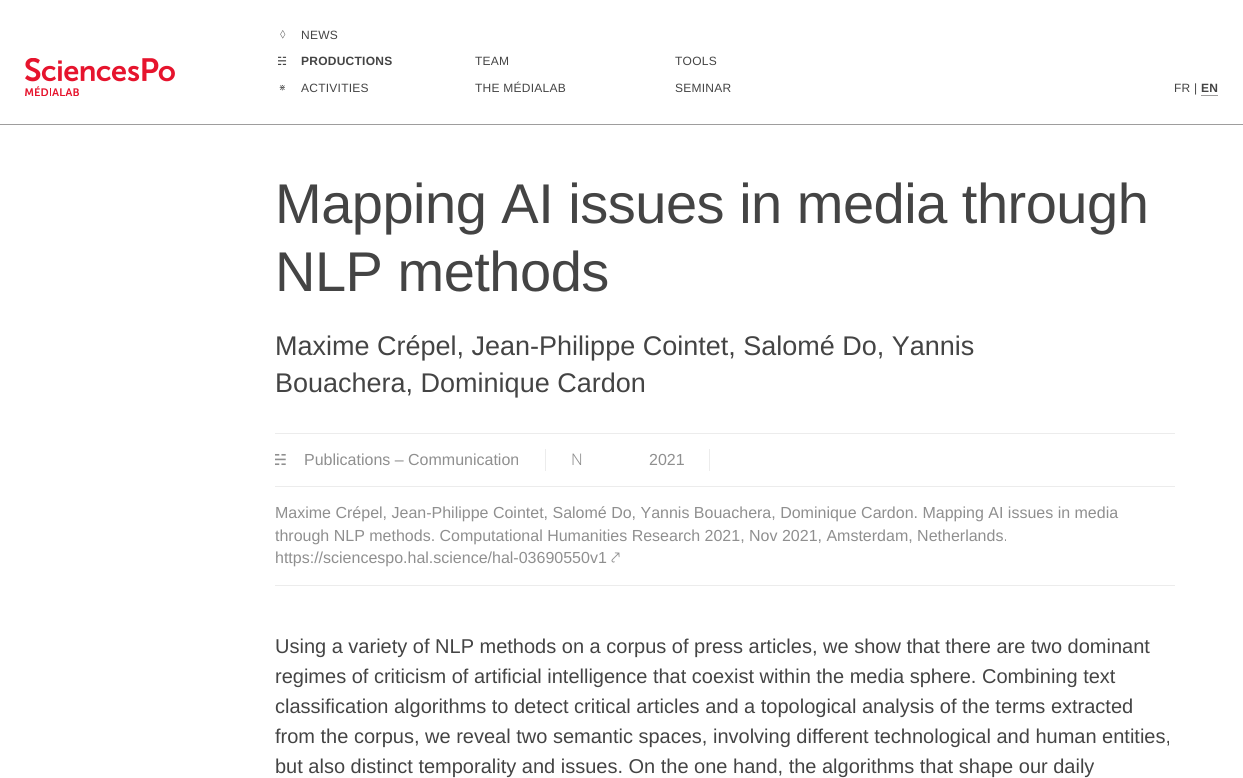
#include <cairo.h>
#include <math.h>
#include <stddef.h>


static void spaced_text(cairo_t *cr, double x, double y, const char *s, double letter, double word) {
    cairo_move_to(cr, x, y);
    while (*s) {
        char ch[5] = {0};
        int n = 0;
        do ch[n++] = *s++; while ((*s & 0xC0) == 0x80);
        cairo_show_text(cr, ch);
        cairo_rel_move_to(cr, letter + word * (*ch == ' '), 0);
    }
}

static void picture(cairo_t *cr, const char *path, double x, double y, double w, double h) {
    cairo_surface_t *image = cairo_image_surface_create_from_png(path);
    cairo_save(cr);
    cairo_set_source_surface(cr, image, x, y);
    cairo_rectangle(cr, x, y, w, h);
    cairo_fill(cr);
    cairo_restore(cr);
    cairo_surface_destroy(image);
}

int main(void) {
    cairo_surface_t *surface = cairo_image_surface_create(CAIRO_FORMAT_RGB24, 1243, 778);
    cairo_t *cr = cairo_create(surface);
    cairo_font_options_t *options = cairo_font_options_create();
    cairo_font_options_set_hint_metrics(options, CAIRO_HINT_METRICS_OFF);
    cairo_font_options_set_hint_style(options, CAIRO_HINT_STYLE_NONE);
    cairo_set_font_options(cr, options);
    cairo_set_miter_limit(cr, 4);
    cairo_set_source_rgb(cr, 1, 1, 1);
    cairo_paint(cr);
    cairo_set_source_rgb(cr, 0.62, 0.616, 0.616);
    cairo_rectangle(cr, 0, 124, 1243, 1);
    cairo_fill(cr);
    picture(cr, "img1.png", 25, 58, 150, 38);
    cairo_select_font_face(cr, "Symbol", CAIRO_FONT_SLANT_NORMAL, CAIRO_FONT_WEIGHT_NORMAL);
    cairo_set_font_size(cr, 12);
    cairo_set_source_rgb(cr, 0.267, 0.267, 0.267);
    spaced_text(cr, 280, 39, "◊", 0.25, 0);
    cairo_select_font_face(cr, "Liberation Sans", CAIRO_FONT_SLANT_NORMAL, CAIRO_FONT_WEIGHT_NORMAL);
    spaced_text(cr, 301, 39, "NEWS", 0.25, 0);
    cairo_select_font_face(cr, "Symbol", CAIRO_FONT_SLANT_NORMAL, CAIRO_FONT_WEIGHT_NORMAL);
    spaced_text(cr, 278, 65, "☵", 0.25, 0);
    cairo_select_font_face(cr, "Liberation Sans", CAIRO_FONT_SLANT_NORMAL, CAIRO_FONT_WEIGHT_BOLD);
    spaced_text(cr, 301, 65, "PRODUCTIONS", 0.25, 0);
    cairo_select_font_face(cr, "Symbol", CAIRO_FONT_SLANT_NORMAL, CAIRO_FONT_WEIGHT_NORMAL);
    spaced_text(cr, 279, 92, "⋇", 0.25, 0);
    cairo_select_font_face(cr, "Liberation Sans", CAIRO_FONT_SLANT_NORMAL, CAIRO_FONT_WEIGHT_NORMAL);
    spaced_text(cr, 301, 92, "ACTIVITIES", 0.25, 0);
    spaced_text(cr, 475, 65, "TEAM", 0.25, 0);
    spaced_text(cr, 475, 92, "THE MÉDIALAB", 0.25, 0);
    spaced_text(cr, 675, 65, "TOOLS", 0.25, 0);
    spaced_text(cr, 675, 92, "SEMINAR", 0.25, 0);
    spaced_text(cr, 1174, 92, "FR |", 0.25, 0);
    cairo_select_font_face(cr, "Liberation Sans", CAIRO_FONT_SLANT_NORMAL, CAIRO_FONT_WEIGHT_BOLD);
    spaced_text(cr, 1201, 92, "EN", 0.25, 0);
    cairo_set_source_rgb(cr, 0.62, 0.616, 0.616);
    cairo_rectangle(cr, 1201, 95, 17, 1);
    cairo_fill(cr);
    cairo_select_font_face(cr, "Liberation Sans", CAIRO_FONT_SLANT_NORMAL, CAIRO_FONT_WEIGHT_NORMAL);
    cairo_set_font_size(cr, 56);
    cairo_set_source_rgb(cr, 0.267, 0.267, 0.267);
    spaced_text(cr, 275, 223, "Mapping AI issues in media through", -0.5, 0);
    spaced_text(cr, 275, 291, "NLP methods", -0.5, 0);
    cairo_set_font_size(cr, 27);
    cairo_move_to(cr, 275, 355);
    cairo_show_text(cr, "Maxime Crépel, Jean-Philippe Cointet, Salomé Do, Yannis");
    cairo_move_to(cr, 275, 392);
    cairo_show_text(cr, "Bouachera, Dominique Cardon");
    cairo_set_source_rgb(cr, 0.922, 0.922, 0.922);
    cairo_rectangle(cr, 275, 433, 900, 1);
    cairo_fill(cr);
    cairo_rectangle(cr, 275, 585, 900, 1);
    cairo_fill(cr);
    cairo_rectangle(cr, 545, 449, 1, 22);
    cairo_fill(cr);
    cairo_select_font_face(cr, "Symbol", CAIRO_FONT_SLANT_NORMAL, CAIRO_FONT_WEIGHT_NORMAL);
    cairo_set_font_size(cr, 16);
    cairo_set_source_rgb(cr, 0.561, 0.561, 0.561);
    cairo_move_to(cr, 275, 465);
    cairo_show_text(cr, "☵");
    cairo_select_font_face(cr, "Liberation Sans", CAIRO_FONT_SLANT_NORMAL, CAIRO_FONT_WEIGHT_NORMAL);
    cairo_move_to(cr, 304, 465);
    cairo_show_text(cr, "Publications – Communication");
    cairo_set_source_rgb(cr, 0.922, 0.922, 0.922);
    cairo_rectangle(cr, 709, 449, 1, 22);
    cairo_fill(cr);
    cairo_select_font_face(cr, "Noto Sans Light", CAIRO_FONT_SLANT_NORMAL, CAIRO_FONT_WEIGHT_NORMAL);
    cairo_set_source_rgb(cr, 0.561, 0.561, 0.561);
    cairo_move_to(cr, 571, 465);
    cairo_show_text(cr, "N");
    cairo_select_font_face(cr, "Liberation Sans", CAIRO_FONT_SLANT_NORMAL, CAIRO_FONT_WEIGHT_NORMAL);
    cairo_move_to(cr, 649, 465);
    cairo_show_text(cr, "2021");
    cairo_set_source_rgb(cr, 0.922, 0.922, 0.922);
    cairo_rectangle(cr, 275, 486, 900, 1);
    cairo_fill(cr);
    cairo_set_source_rgb(cr, 0.561, 0.561, 0.561);
    cairo_move_to(cr, 275, 518);
    cairo_show_text(cr, "Maxime Crépel, Jean-Philippe Cointet, Salomé Do, Yannis Bouachera, Dominique Cardon. Mapping AI issues in media");
    cairo_move_to(cr, 275, 541);
    cairo_show_text(cr, "through NLP methods. Computational Humanities Research 2021, Nov 2021, Amsterdam, Netherlands.");
    cairo_move_to(cr, 275, 563);
    cairo_show_text(cr, "https://sciencespo.hal.science/hal-03690550v1");
    cairo_select_font_face(cr, "FreeSerif", CAIRO_FONT_SLANT_NORMAL, CAIRO_FONT_WEIGHT_NORMAL);
    cairo_move_to(cr, 611, 563);
    cairo_show_text(cr, "⤤");
    cairo_select_font_face(cr, "Liberation Sans", CAIRO_FONT_SLANT_NORMAL, CAIRO_FONT_WEIGHT_NORMAL);
    cairo_set_font_size(cr, 20);
    cairo_set_source_rgb(cr, 0.267, 0.267, 0.267);
    cairo_move_to(cr, 275, 653);
    cairo_show_text(cr, "Using a variety of NLP methods on a corpus of press articles, we show that there are two dominant");
    cairo_move_to(cr, 275, 683);
    cairo_show_text(cr, "regimes of criticism of artificial intelligence that coexist within the media sphere. Combining text");
    cairo_move_to(cr, 275, 713);
    cairo_show_text(cr, "classification algorithms to detect critical articles and a topological analysis of the terms extracted");
    cairo_move_to(cr, 275, 743);
    cairo_show_text(cr, "from the corpus, we reveal two semantic spaces, involving different technological and human entities,");
    cairo_move_to(cr, 275, 773);
    cairo_show_text(cr, "but also distinct temporality and issues. On the one hand, the algorithms that shape our daily");
    cairo_surface_write_to_png(surface, "page.png");
    cairo_font_options_destroy(options);
    cairo_destroy(cr);
    cairo_surface_destroy(surface);
    return 0;
}
